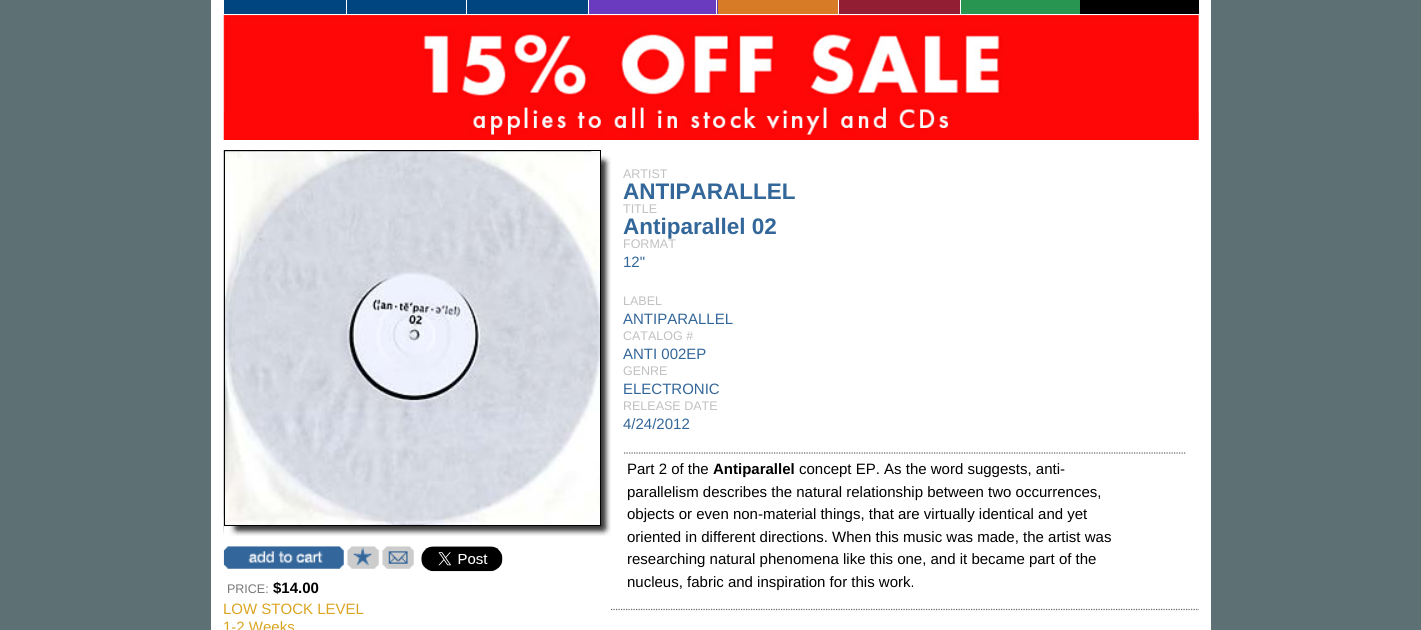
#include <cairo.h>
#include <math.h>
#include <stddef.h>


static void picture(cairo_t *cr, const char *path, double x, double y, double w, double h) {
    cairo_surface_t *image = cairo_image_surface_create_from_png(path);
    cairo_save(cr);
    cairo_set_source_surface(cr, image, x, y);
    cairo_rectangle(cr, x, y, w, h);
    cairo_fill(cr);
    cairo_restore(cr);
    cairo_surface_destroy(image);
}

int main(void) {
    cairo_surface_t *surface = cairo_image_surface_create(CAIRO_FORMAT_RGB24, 1421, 630);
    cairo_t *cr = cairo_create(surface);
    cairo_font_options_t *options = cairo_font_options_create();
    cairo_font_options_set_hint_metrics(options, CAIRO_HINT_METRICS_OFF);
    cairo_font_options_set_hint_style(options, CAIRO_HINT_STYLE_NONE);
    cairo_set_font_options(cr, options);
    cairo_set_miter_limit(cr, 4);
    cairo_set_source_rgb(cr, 0.365, 0.439, 0.451);
    cairo_paint(cr);
    cairo_set_source_rgb(cr, 1, 1, 1);
    cairo_rectangle(cr, 211, 0, 1000, 630);
    cairo_fill(cr);
    cairo_set_source_rgb(cr, 0, 0.271, 0.502);
    cairo_rectangle(cr, 224, 0, 364, 14);
    cairo_fill(cr);
    cairo_set_source_rgb(cr, 1, 1, 1);
    cairo_rectangle(cr, 346, 0, 1, 14);
    cairo_fill(cr);
    cairo_rectangle(cr, 466, 0, 1, 14);
    cairo_fill(cr);
    cairo_set_source_rgb(cr, 0.42, 0.231, 0.749);
    cairo_rectangle(cr, 589, 0, 129, 14);
    cairo_fill(cr);
    cairo_set_source_rgb(cr, 1, 1, 1);
    cairo_rectangle(cr, 716, 0, 1, 14);
    cairo_fill(cr);
    cairo_set_source_rgb(cr, 0.847, 0.482, 0.153);
    cairo_rectangle(cr, 718, 0, 120, 14);
    cairo_fill(cr);
    cairo_set_source_rgb(cr, 0.569, 0.118, 0.196);
    cairo_rectangle(cr, 839, 0, 121, 14);
    cairo_fill(cr);
    cairo_set_source_rgb(cr, 0.157, 0.584, 0.318);
    cairo_rectangle(cr, 961, 0, 119, 14);
    cairo_fill(cr);
    cairo_set_source_rgb(cr, 0, 0, 0);
    cairo_rectangle(cr, 1080, 0, 119, 14);
    cairo_fill(cr);
    picture(cr, "img1.png", 223, 15, 976, 125);
    cairo_new_path(cr);
    cairo_move_to(cr, 611, 609.5);
    cairo_line_to(cr, 1199, 609.5);
    cairo_set_source_rgb(cr, 0.4, 0.4, 0.4);
    cairo_set_line_width(cr, 1.2);
    cairo_set_dash(cr, (double[]){1.25, 1.25}, 2, 0);
    cairo_stroke(cr);
    cairo_select_font_face(cr, "Liberation Sans", CAIRO_FONT_SLANT_NORMAL, CAIRO_FONT_WEIGHT_NORMAL);
    cairo_set_font_size(cr, 12.5);
    cairo_set_source_rgb(cr, 0.753, 0.753, 0.753);
    cairo_move_to(cr, 623, 178);
    cairo_show_text(cr, "ARTIST");
    cairo_select_font_face(cr, "Liberation Sans", CAIRO_FONT_SLANT_NORMAL, CAIRO_FONT_WEIGHT_BOLD);
    cairo_set_font_size(cr, 22.5);
    cairo_set_source_rgb(cr, 0.2, 0.4, 0.6);
    cairo_move_to(cr, 623, 199);
    cairo_show_text(cr, "ANTIPARALLEL");
    cairo_select_font_face(cr, "Liberation Sans", CAIRO_FONT_SLANT_NORMAL, CAIRO_FONT_WEIGHT_NORMAL);
    cairo_set_font_size(cr, 12.5);
    cairo_set_source_rgb(cr, 0.753, 0.753, 0.753);
    cairo_move_to(cr, 623, 213);
    cairo_show_text(cr, "TITLE");
    cairo_select_font_face(cr, "Liberation Sans", CAIRO_FONT_SLANT_NORMAL, CAIRO_FONT_WEIGHT_BOLD);
    cairo_set_font_size(cr, 22.5);
    cairo_set_source_rgb(cr, 0.2, 0.4, 0.6);
    cairo_move_to(cr, 623, 234);
    cairo_show_text(cr, "Antiparallel 02");
    cairo_select_font_face(cr, "Liberation Sans", CAIRO_FONT_SLANT_NORMAL, CAIRO_FONT_WEIGHT_NORMAL);
    cairo_set_font_size(cr, 12.5);
    cairo_set_source_rgb(cr, 0.753, 0.753, 0.753);
    cairo_move_to(cr, 623, 248);
    cairo_show_text(cr, "FORMAT");
    cairo_set_font_size(cr, 15);
    cairo_set_source_rgb(cr, 0.2, 0.4, 0.6);
    cairo_move_to(cr, 623, 267);
    cairo_show_text(cr, "12\"");
    cairo_set_font_size(cr, 12.5);
    cairo_set_source_rgb(cr, 0.753, 0.753, 0.753);
    cairo_move_to(cr, 623, 305);
    cairo_show_text(cr, "LABEL");
    cairo_set_font_size(cr, 15);
    cairo_set_source_rgb(cr, 0.2, 0.4, 0.6);
    cairo_move_to(cr, 623, 324);
    cairo_show_text(cr, "ANTIPARALLEL");
    cairo_set_font_size(cr, 12.5);
    cairo_set_source_rgb(cr, 0.753, 0.753, 0.753);
    cairo_move_to(cr, 623, 340);
    cairo_show_text(cr, "CATALOG #");
    cairo_set_font_size(cr, 15);
    cairo_set_source_rgb(cr, 0.2, 0.4, 0.6);
    cairo_move_to(cr, 623, 359);
    cairo_show_text(cr, "ANTI 002EP");
    cairo_set_font_size(cr, 12.5);
    cairo_set_source_rgb(cr, 0.753, 0.753, 0.753);
    cairo_move_to(cr, 623, 375);
    cairo_show_text(cr, "GENRE");
    cairo_set_font_size(cr, 15);
    cairo_set_source_rgb(cr, 0.2, 0.4, 0.6);
    cairo_move_to(cr, 623, 394);
    cairo_show_text(cr, "ELECTRONIC");
    cairo_set_font_size(cr, 12.5);
    cairo_set_source_rgb(cr, 0.753, 0.753, 0.753);
    cairo_move_to(cr, 623, 410);
    cairo_show_text(cr, "RELEASE DATE");
    cairo_set_font_size(cr, 15);
    cairo_set_source_rgb(cr, 0.2, 0.4, 0.6);
    cairo_move_to(cr, 623, 429);
    cairo_show_text(cr, "4/24/2012");
    cairo_new_path(cr);
    cairo_move_to(cr, 624, 453);
    cairo_line_to(cr, 1186, 453);
    cairo_set_source_rgb(cr, 0.4, 0.4, 0.4);
    cairo_stroke(cr);
    cairo_set_source_rgb(cr, 0, 0, 0);
    cairo_move_to(cr, 627, 474);
    cairo_show_text(cr, "Part 2 of the");
    cairo_select_font_face(cr, "Liberation Sans", CAIRO_FONT_SLANT_NORMAL, CAIRO_FONT_WEIGHT_BOLD);
    cairo_move_to(cr, 713, 474);
    cairo_show_text(cr, "Antiparallel");
    cairo_select_font_face(cr, "Liberation Sans", CAIRO_FONT_SLANT_NORMAL, CAIRO_FONT_WEIGHT_NORMAL);
    cairo_move_to(cr, 799, 474);
    cairo_show_text(cr, "concept EP. As the word suggests, anti-");
    cairo_move_to(cr, 627, 497);
    cairo_show_text(cr, "parallelism describes the natural relationship between two occurrences,");
    cairo_move_to(cr, 627, 519);
    cairo_show_text(cr, "objects or even non-material things, that are virtually identical and yet");
    cairo_move_to(cr, 627, 542);
    cairo_show_text(cr, "oriented in different directions. When this music was made, the artist was");
    cairo_move_to(cr, 627, 564);
    cairo_show_text(cr, "researching natural phenomena like this one, and it became part of the");
    cairo_move_to(cr, 627, 587);
    cairo_show_text(cr, "nucleus, fabric and inspiration for this work.");
    picture(cr, "img2.png", 223, 150, 388, 386);
    picture(cr, "img3.png", 223, 516, 17, 20);
    picture(cr, "img4.png", 591, 150, 20, 15);
    cairo_rectangle(cr, 224.5, 150.5, 376, 375);
    cairo_set_line_width(cr, 1);
    cairo_set_dash(cr, NULL, 0, 0);
    cairo_stroke(cr);
    picture(cr, "img5.png", 225, 151, 375, 374);
    picture(cr, "img6.png", 223, 546, 121, 23);
    picture(cr, "img7.png", 347, 546, 32, 23);
    picture(cr, "img8.png", 382, 546, 32, 23);
    picture(cr, "img9.png", 421, 546, 82, 26);
    cairo_set_font_size(cr, 12.5);
    cairo_set_source_rgb(cr, 0.467, 0.467, 0.467);
    cairo_move_to(cr, 227, 593);
    cairo_show_text(cr, "PRICE:");
    cairo_select_font_face(cr, "Liberation Sans", CAIRO_FONT_SLANT_NORMAL, CAIRO_FONT_WEIGHT_BOLD);
    cairo_set_font_size(cr, 15);
    cairo_set_source_rgb(cr, 0, 0, 0);
    cairo_move_to(cr, 273, 593);
    cairo_show_text(cr, "$14.00");
    cairo_select_font_face(cr, "Liberation Sans", CAIRO_FONT_SLANT_NORMAL, CAIRO_FONT_WEIGHT_NORMAL);
    cairo_set_source_rgb(cr, 0.855, 0.647, 0.125);
    cairo_move_to(cr, 223, 614);
    cairo_show_text(cr, "LOW STOCK LEVEL");
    cairo_move_to(cr, 223, 632);
    cairo_show_text(cr, "1-2 Weeks");
    cairo_surface_write_to_png(surface, "page.png");
    cairo_font_options_destroy(options);
    cairo_destroy(cr);
    cairo_surface_destroy(surface);
    return 0;
}
